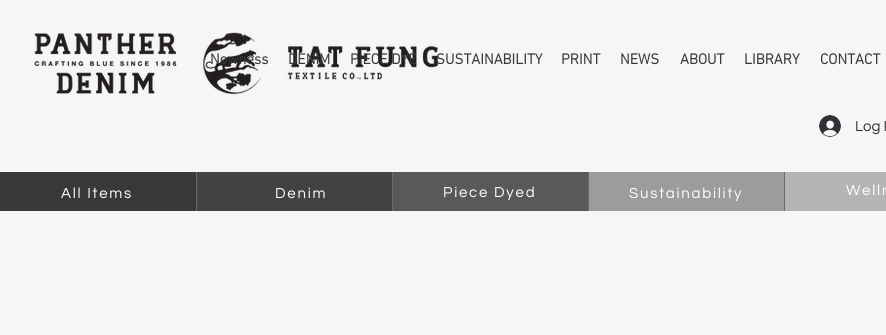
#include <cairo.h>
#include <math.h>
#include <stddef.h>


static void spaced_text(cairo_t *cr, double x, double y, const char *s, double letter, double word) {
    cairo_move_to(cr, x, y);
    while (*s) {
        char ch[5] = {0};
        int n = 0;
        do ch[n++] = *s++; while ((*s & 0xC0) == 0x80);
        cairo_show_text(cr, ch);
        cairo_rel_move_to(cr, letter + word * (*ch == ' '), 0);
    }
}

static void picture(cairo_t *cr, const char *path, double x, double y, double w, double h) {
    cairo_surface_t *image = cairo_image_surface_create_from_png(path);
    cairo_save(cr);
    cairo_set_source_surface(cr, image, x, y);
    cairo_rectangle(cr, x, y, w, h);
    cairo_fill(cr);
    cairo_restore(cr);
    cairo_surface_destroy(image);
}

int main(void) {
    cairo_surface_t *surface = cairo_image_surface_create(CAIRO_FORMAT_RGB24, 886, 335);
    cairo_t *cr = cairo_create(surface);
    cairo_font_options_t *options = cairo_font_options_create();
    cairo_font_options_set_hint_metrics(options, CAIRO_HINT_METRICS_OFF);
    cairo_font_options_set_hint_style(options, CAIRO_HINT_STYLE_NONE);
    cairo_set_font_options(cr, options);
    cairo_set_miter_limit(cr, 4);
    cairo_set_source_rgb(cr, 0.961, 0.961, 0.961);
    cairo_paint(cr);
    picture(cr, "img1.png", 34, 32, 405, 63);
    cairo_select_font_face(cr, "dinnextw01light", CAIRO_FONT_SLANT_NORMAL, CAIRO_FONT_WEIGHT_BOLD);
    cairo_set_font_size(cr, 15);
    cairo_set_source_rgb(cr, 0.22, 0.22, 0.22);
    cairo_move_to(cr, 210, 64);
    cairo_show_text(cr, "Newness");
    cairo_move_to(cr, 288, 64);
    cairo_show_text(cr, "DENIM");
    cairo_move_to(cr, 350, 64);
    cairo_show_text(cr, "PIECE DYE");
    cairo_move_to(cr, 436, 64);
    cairo_show_text(cr, "SUSTAINABILITY");
    cairo_move_to(cr, 561, 64);
    cairo_show_text(cr, "PRINT");
    cairo_move_to(cr, 620, 64);
    cairo_show_text(cr, "NEWS");
    cairo_move_to(cr, 680, 64);
    cairo_show_text(cr, "ABOUT");
    cairo_move_to(cr, 744, 64);
    cairo_show_text(cr, "LIBRARY");
    cairo_move_to(cr, 820, 64);
    cairo_show_text(cr, "CONTACT");
    picture(cr, "img2.png", 819, 115, 22, 22);
    cairo_select_font_face(cr, "Questrial", CAIRO_FONT_SLANT_NORMAL, CAIRO_FONT_WEIGHT_NORMAL);
    cairo_set_source_rgb(cr, 0.18, 0.196, 0.22);
    cairo_move_to(cr, 855, 131);
    cairo_show_text(cr, "Log I");
    cairo_set_source_rgb(cr, 0.42, 0.42, 0.42);
    cairo_rectangle(cr, 196, 172, 589, 39);
    cairo_fill(cr);
    cairo_set_source_rgb(cr, 0.22, 0.22, 0.22);
    cairo_rectangle(cr, 0, 172, 196, 39);
    cairo_fill(cr);
    cairo_set_source_rgb(cr, 1, 1, 1);
    spaced_text(cr, 61, 198, "All Items", 1.75, 0);
    cairo_set_source_rgb(cr, 0.259, 0.259, 0.259);
    cairo_rectangle(cr, 197, 172, 195, 39);
    cairo_fill(cr);
    cairo_set_source_rgb(cr, 1, 1, 1);
    spaced_text(cr, 275, 198, "Denim", 1.75, 0);
    cairo_set_source_rgb(cr, 0.349, 0.349, 0.349);
    cairo_rectangle(cr, 393, 172, 195, 39);
    cairo_fill(cr);
    cairo_set_source_rgb(cr, 1, 1, 1);
    spaced_text(cr, 443, 197, "Piece Dyed", 1.75, 0);
    cairo_set_source_rgb(cr, 0.612, 0.612, 0.612);
    cairo_rectangle(cr, 589, 172, 195, 39);
    cairo_fill(cr);
    cairo_set_source_rgb(cr, 1, 1, 1);
    spaced_text(cr, 629, 198, "Sustainability", 1.75, 0);
    cairo_set_source_rgb(cr, 0.71, 0.71, 0.71);
    cairo_rectangle(cr, 785, 172, 101, 39);
    cairo_fill(cr);
    cairo_set_source_rgb(cr, 1, 1, 1);
    spaced_text(cr, 846, 195, "Welln", 1.75, 0);
    cairo_surface_write_to_png(surface, "page.png");
    cairo_font_options_destroy(options);
    cairo_destroy(cr);
    cairo_surface_destroy(surface);
    return 0;
}
